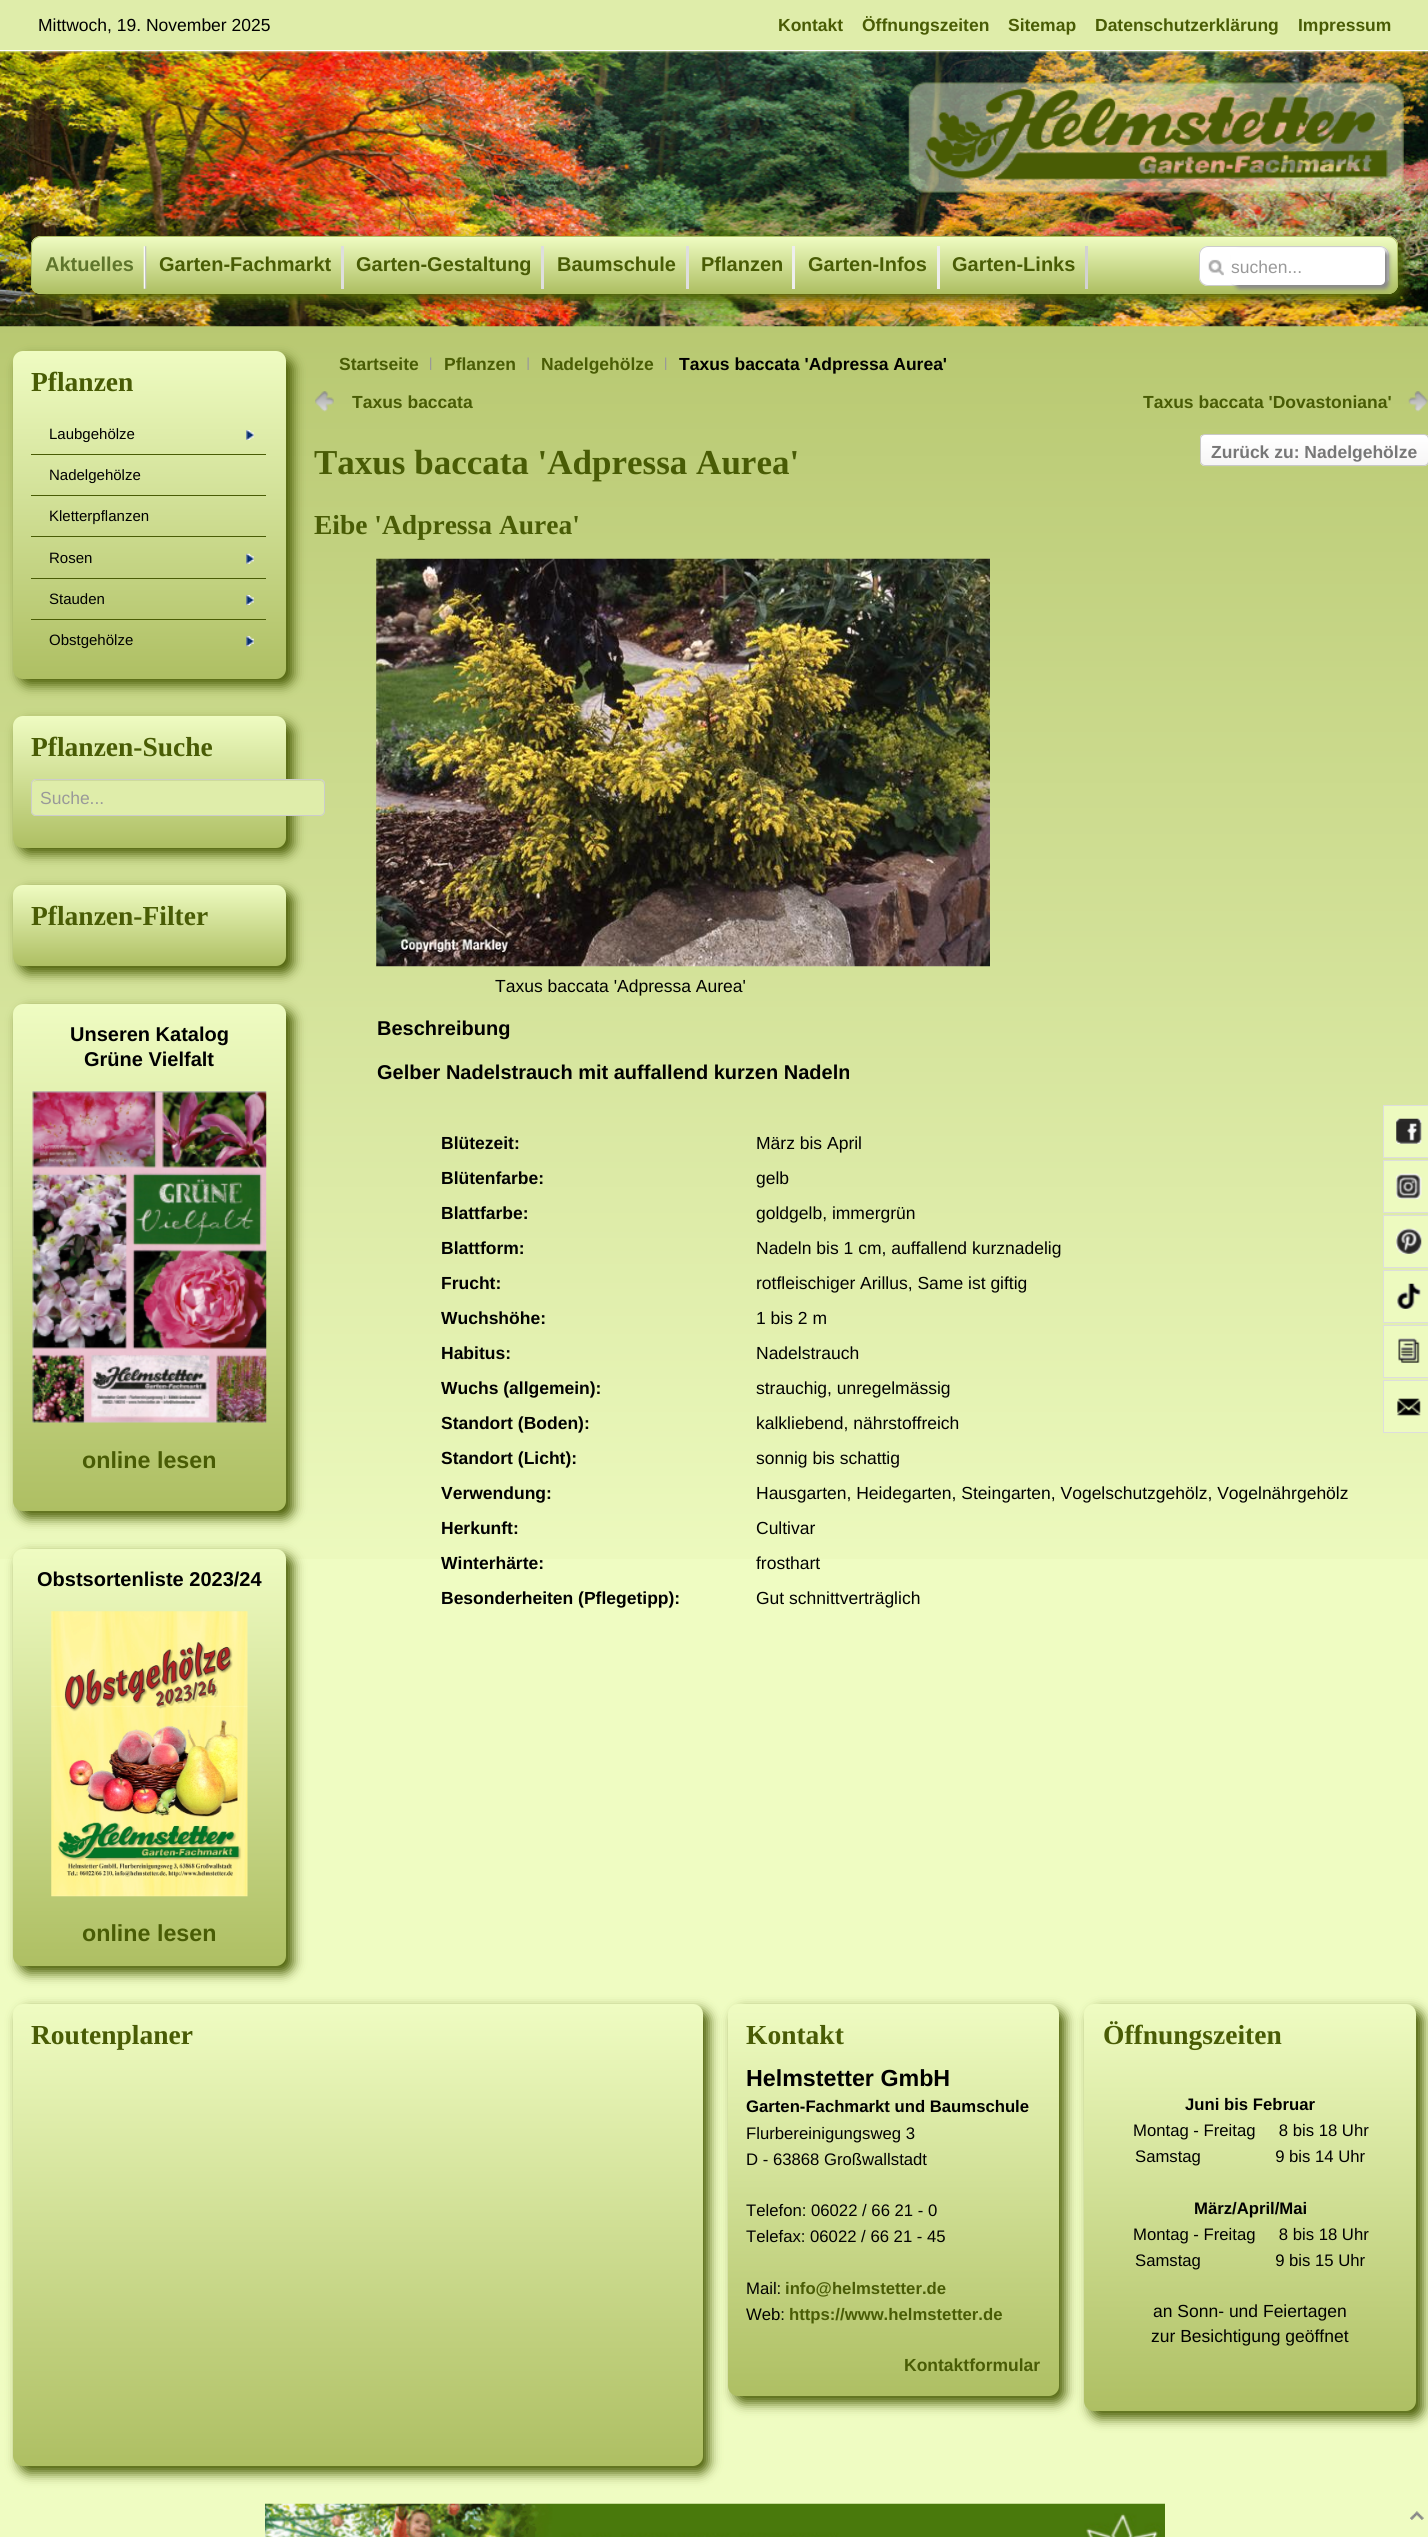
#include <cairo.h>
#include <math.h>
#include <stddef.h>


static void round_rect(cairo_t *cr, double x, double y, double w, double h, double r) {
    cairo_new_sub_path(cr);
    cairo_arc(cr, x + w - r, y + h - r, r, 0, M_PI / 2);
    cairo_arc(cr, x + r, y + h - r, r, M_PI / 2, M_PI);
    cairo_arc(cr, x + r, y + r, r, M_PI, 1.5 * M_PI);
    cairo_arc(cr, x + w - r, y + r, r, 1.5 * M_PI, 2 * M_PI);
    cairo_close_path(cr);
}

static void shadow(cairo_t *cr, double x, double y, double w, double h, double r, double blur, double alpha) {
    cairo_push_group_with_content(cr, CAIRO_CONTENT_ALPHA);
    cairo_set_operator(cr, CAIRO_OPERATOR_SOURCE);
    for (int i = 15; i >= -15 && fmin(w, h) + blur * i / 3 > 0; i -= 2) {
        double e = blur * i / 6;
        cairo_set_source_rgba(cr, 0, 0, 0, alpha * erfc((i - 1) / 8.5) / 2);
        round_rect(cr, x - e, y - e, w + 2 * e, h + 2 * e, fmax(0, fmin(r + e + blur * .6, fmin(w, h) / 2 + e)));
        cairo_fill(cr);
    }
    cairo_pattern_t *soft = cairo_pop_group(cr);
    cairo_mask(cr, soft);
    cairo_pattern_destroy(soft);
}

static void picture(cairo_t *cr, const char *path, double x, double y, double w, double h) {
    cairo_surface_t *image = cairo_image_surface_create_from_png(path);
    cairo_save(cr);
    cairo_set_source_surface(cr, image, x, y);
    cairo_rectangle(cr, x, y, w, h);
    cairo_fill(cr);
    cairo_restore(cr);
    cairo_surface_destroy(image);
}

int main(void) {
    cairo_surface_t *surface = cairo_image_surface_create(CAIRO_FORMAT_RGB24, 1428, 2537);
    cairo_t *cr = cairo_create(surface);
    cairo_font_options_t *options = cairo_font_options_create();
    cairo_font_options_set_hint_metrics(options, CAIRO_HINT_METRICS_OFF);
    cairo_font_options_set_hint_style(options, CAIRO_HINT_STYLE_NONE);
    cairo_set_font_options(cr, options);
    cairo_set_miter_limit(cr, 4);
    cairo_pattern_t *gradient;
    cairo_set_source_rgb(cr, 0.937, 0.988, 0.761);
    cairo_paint(cr);
    picture(cr, "img1.png", 0, 326, 1428, 1233);
    cairo_set_source_rgb(cr, 0.875, 0.929, 0.667);
    cairo_rectangle(cr, 0, 0, 1428, 50);
    cairo_fill(cr);
    cairo_set_source_rgb(cr, 1, 1, 1);
    cairo_rectangle(cr, 0, 50, 1428, 1);
    cairo_fill(cr);
    cairo_select_font_face(cr, "Liberation Sans", CAIRO_FONT_SLANT_NORMAL, CAIRO_FONT_WEIGHT_NORMAL);
    cairo_set_font_size(cr, 17.5);
    cairo_set_source_rgb(cr, 0, 0, 0);
    cairo_move_to(cr, 38, 31);
    cairo_show_text(cr, "Mittwoch, 19. November 2025");
    cairo_set_source_rgb(cr, 0.929, 0.98, 0.749);
    cairo_rectangle(cr, 1383.5, 1105.5, 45, 52);
    cairo_fill_preserve(cr);
    cairo_set_source_rgb(cr, 0.867, 0.867, 0.867);
    cairo_set_line_width(cr, 1);
    cairo_stroke(cr);
    picture(cr, "img2.png", 1396, 1118, 26, 26);
    cairo_set_source_rgb(cr, 0.929, 0.98, 0.749);
    cairo_rectangle(cr, 1383.5, 1160.5, 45, 52);
    cairo_fill_preserve(cr);
    cairo_set_source_rgb(cr, 0.867, 0.867, 0.867);
    cairo_stroke(cr);
    picture(cr, "img3.png", 1396, 1173, 26, 26);
    cairo_set_source_rgb(cr, 0.929, 0.98, 0.749);
    cairo_rectangle(cr, 1383.5, 1215.5, 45, 52);
    cairo_fill_preserve(cr);
    cairo_set_source_rgb(cr, 0.867, 0.867, 0.867);
    cairo_stroke(cr);
    picture(cr, "img4.png", 1396, 1228, 26, 26);
    cairo_set_source_rgb(cr, 0.929, 0.98, 0.749);
    cairo_rectangle(cr, 1383.5, 1270.5, 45, 52);
    cairo_fill_preserve(cr);
    cairo_set_source_rgb(cr, 0.867, 0.867, 0.867);
    cairo_stroke(cr);
    picture(cr, "img5.png", 1397, 1283, 24, 26);
    cairo_set_source_rgb(cr, 0.929, 0.98, 0.749);
    cairo_rectangle(cr, 1383.5, 1325.5, 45, 52);
    cairo_fill_preserve(cr);
    cairo_set_source_rgb(cr, 0.867, 0.867, 0.867);
    cairo_stroke(cr);
    picture(cr, "img6.png", 1398, 1338, 22, 25);
    cairo_set_source_rgb(cr, 0.929, 0.98, 0.749);
    cairo_rectangle(cr, 1383.5, 1380.5, 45, 52);
    cairo_fill_preserve(cr);
    cairo_set_source_rgb(cr, 0.867, 0.867, 0.867);
    cairo_stroke(cr);
    picture(cr, "img7.png", 1397, 1398, 24, 18);
    cairo_select_font_face(cr, "Liberation Sans", CAIRO_FONT_SLANT_NORMAL, CAIRO_FONT_WEIGHT_BOLD);
    cairo_set_source_rgb(cr, 0.286, 0.361, 0.02);
    cairo_move_to(cr, 778, 31);
    cairo_show_text(cr, "Kontakt");
    cairo_move_to(cr, 862, 31);
    cairo_show_text(cr, "Öffnungszeiten");
    cairo_move_to(cr, 1008, 31);
    cairo_show_text(cr, "Sitemap");
    cairo_move_to(cr, 1095, 31);
    cairo_show_text(cr, "Datenschutzerklärung");
    cairo_move_to(cr, 1298, 31);
    cairo_show_text(cr, "Impressum");
    picture(cr, "img8.png", 0, 51, 1428, 276);
    picture(cr, "img9.png", 908, 82, 496, 111);
    cairo_set_source_rgb(cr, 0.286, 0.361, 0.02);
    shadow(cr, 38, 243, 1366, 57, 10, 6, 1);
    cairo_set_source_rgb(cr, 0.937, 0.988, 0.761);
    round_rect(cr, 31, 236, 1367, 58, 10);
    cairo_fill(cr);
    cairo_save(cr);
    round_rect(cr, 31, 236, 1367, 58, 10);
    cairo_clip(cr);
    gradient = cairo_pattern_create_linear(714, 237, 714, 293);
    cairo_pattern_add_color_stop_rgba(gradient, 0, 0.937, 0.988, 0.761, 1);
    cairo_pattern_add_color_stop_rgba(gradient, 1, 0.682, 0.749, 0.388, 1);
    cairo_set_source(cr, gradient);
    cairo_pattern_destroy(gradient);
    cairo_rectangle(cr, 31, 238, 1367, 55);
    cairo_fill(cr);
    cairo_restore(cr);
    round_rect(cr, 31.5, 236.5, 1366, 57, 9.5);
    cairo_set_source_rgb(cr, 0.682, 0.749, 0.388);
    cairo_stroke(cr);
    picture(cr, "img10.png", 143, 246, 4, 43);
    cairo_set_font_size(cr, 20);
    cairo_set_source_rgb(cr, 0.373, 0.459, 0.173);
    cairo_move_to(cr, 45, 271);
    cairo_show_text(cr, "Aktuelles");
    cairo_set_source_rgb(cr, 0.871, 0.871, 0.871);
    cairo_rectangle(cr, 341, 246, 3, 43);
    cairo_fill(cr);
    cairo_set_source_rgb(cr, 0.286, 0.361, 0.02);
    cairo_move_to(cr, 159, 271);
    cairo_show_text(cr, "Garten-Fachmarkt");
    cairo_set_source_rgb(cr, 0.871, 0.871, 0.871);
    cairo_rectangle(cr, 541, 246, 3, 43);
    cairo_fill(cr);
    cairo_set_source_rgb(cr, 0.286, 0.361, 0.02);
    cairo_move_to(cr, 356, 271);
    cairo_show_text(cr, "Garten-Gestaltung");
    cairo_set_source_rgb(cr, 0.871, 0.871, 0.871);
    cairo_rectangle(cr, 686, 246, 3, 43);
    cairo_fill(cr);
    cairo_set_source_rgb(cr, 0.286, 0.361, 0.02);
    cairo_move_to(cr, 557, 271);
    cairo_show_text(cr, "Baumschule");
    cairo_set_source_rgb(cr, 0.933, 0.933, 0.933);
    cairo_rectangle(cr, 792, 246, 3, 43);
    cairo_fill(cr);
    cairo_set_source_rgb(cr, 0.286, 0.361, 0.02);
    cairo_move_to(cr, 701, 271);
    cairo_show_text(cr, "Pflanzen");
    cairo_set_source_rgb(cr, 0.933, 0.933, 0.933);
    cairo_rectangle(cr, 937, 246, 3, 43);
    cairo_fill(cr);
    cairo_set_source_rgb(cr, 0.286, 0.361, 0.02);
    cairo_move_to(cr, 808, 271);
    cairo_show_text(cr, "Garten-Infos");
    cairo_set_source_rgb(cr, 0.824, 0.824, 0.824);
    cairo_rectangle(cr, 1085, 246, 3, 43);
    cairo_fill(cr);
    cairo_set_source_rgb(cr, 0.286, 0.361, 0.02);
    cairo_move_to(cr, 952, 271);
    cairo_show_text(cr, "Garten-Links");
    cairo_set_source_rgb(cr, 1, 1, 1);
    round_rect(cr, 1199, 246, 190, 40, 9);
    cairo_fill(cr);
    picture(cr, "img11.png", 1208, 259, 16, 17);
    round_rect(cr, 1199.5, 246.5, 189, 39, 8.5);
    cairo_set_source_rgb(cr, 0.8, 0.8, 0.8);
    cairo_stroke(cr);
    cairo_save(cr);
    cairo_set_fill_rule(cr, CAIRO_FILL_RULE_EVEN_ODD);
    cairo_new_path(cr);
    cairo_move_to(cr, 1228, 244);
    cairo_line_to(cr, 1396, 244);
    cairo_line_to(cr, 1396, 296);
    cairo_line_to(cr, 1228, 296);
    cairo_close_path(cr);
    cairo_move_to(cr, 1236, 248);
    cairo_line_to(cr, 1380, 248);
    cairo_curve_to(cr, 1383, 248, 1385, 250, 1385, 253);
    cairo_line_to(cr, 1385, 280);
    cairo_curve_to(cr, 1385, 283, 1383, 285, 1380, 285);
    cairo_line_to(cr, 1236, 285);
    cairo_curve_to(cr, 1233, 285, 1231, 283, 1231, 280);
    cairo_line_to(cr, 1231, 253);
    cairo_curve_to(cr, 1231, 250, 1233, 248, 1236, 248);
    cairo_close_path(cr);
    cairo_clip(cr);
    cairo_set_source_rgb(cr, 0.533, 0.533, 0.533);
    shadow(cr, 1235, 251, 154, 38, 5, 2, 1);
    cairo_restore(cr);
    cairo_select_font_face(cr, "Liberation Sans", CAIRO_FONT_SLANT_NORMAL, CAIRO_FONT_WEIGHT_NORMAL);
    cairo_set_font_size(cr, 17.5);
    cairo_set_source_rgb(cr, 0.6, 0.6, 0.6);
    cairo_move_to(cr, 1231, 273);
    cairo_show_text(cr, "suchen...");
    cairo_set_source_rgb(cr, 0.286, 0.361, 0.02);
    shadow(cr, 19, 358, 274, 327, 10, 6, 1);
    gradient = cairo_pattern_create_linear(149, 351, 149, 679);
    cairo_pattern_add_color_stop_rgba(gradient, 0, 0.937, 0.988, 0.761, 1);
    cairo_pattern_add_color_stop_rgba(gradient, 1, 0.682, 0.749, 0.388, 1);
    cairo_set_source(cr, gradient);
    cairo_pattern_destroy(gradient);
    round_rect(cr, 13, 351, 273, 328, 10);
    cairo_fill(cr);
    cairo_select_font_face(cr, "Liberation Serif", CAIRO_FONT_SLANT_NORMAL, CAIRO_FONT_WEIGHT_BOLD);
    cairo_set_font_size(cr, 27.5);
    cairo_set_source_rgb(cr, 0.286, 0.361, 0.02);
    cairo_move_to(cr, 31, 391);
    cairo_show_text(cr, "Pflanzen");
    cairo_rectangle(cr, 31, 454, 235, 1);
    cairo_fill(cr);
    cairo_select_font_face(cr, "Liberation Sans", CAIRO_FONT_SLANT_NORMAL, CAIRO_FONT_WEIGHT_NORMAL);
    cairo_set_font_size(cr, 15);
    cairo_set_source_rgb(cr, 0, 0, 0);
    cairo_move_to(cr, 49, 439);
    cairo_show_text(cr, "Laubgehölze");
    picture(cr, "img12.png", 246, 430, 8, 10);
    cairo_set_source_rgb(cr, 0.286, 0.361, 0.02);
    cairo_rectangle(cr, 31, 495, 235, 1);
    cairo_fill(cr);
    cairo_set_source_rgb(cr, 0, 0, 0);
    cairo_move_to(cr, 49, 480);
    cairo_show_text(cr, "Nadelgehölze");
    cairo_set_source_rgb(cr, 0.286, 0.361, 0.02);
    cairo_rectangle(cr, 31, 536, 235, 1);
    cairo_fill(cr);
    cairo_set_source_rgb(cr, 0, 0, 0);
    cairo_move_to(cr, 49, 521);
    cairo_show_text(cr, "Kletterpflanzen");
    cairo_set_source_rgb(cr, 0.286, 0.361, 0.02);
    cairo_rectangle(cr, 31, 578, 235, 1);
    cairo_fill(cr);
    cairo_set_source_rgb(cr, 0, 0, 0);
    cairo_move_to(cr, 49, 563);
    cairo_show_text(cr, "Rosen");
    picture(cr, "img13.png", 246, 553, 8, 11);
    cairo_set_source_rgb(cr, 0.286, 0.361, 0.02);
    cairo_rectangle(cr, 31, 619, 235, 1);
    cairo_fill(cr);
    cairo_set_source_rgb(cr, 0, 0, 0);
    cairo_move_to(cr, 49, 604);
    cairo_show_text(cr, "Stauden");
    picture(cr, "img14.png", 246, 595, 8, 10);
    cairo_move_to(cr, 49, 645);
    cairo_show_text(cr, "Obstgehölze");
    picture(cr, "img15.png", 246, 636, 8, 11);
    cairo_set_source_rgb(cr, 0.286, 0.361, 0.02);
    shadow(cr, 19, 723, 274, 131, 10, 6, 1);
    gradient = cairo_pattern_create_linear(149, 716, 149, 848);
    cairo_pattern_add_color_stop_rgba(gradient, 0, 0.937, 0.988, 0.761, 1);
    cairo_pattern_add_color_stop_rgba(gradient, 1, 0.682, 0.749, 0.388, 1);
    cairo_set_source(cr, gradient);
    cairo_pattern_destroy(gradient);
    round_rect(cr, 13, 716, 273, 132, 10);
    cairo_fill(cr);
    cairo_select_font_face(cr, "Liberation Serif", CAIRO_FONT_SLANT_NORMAL, CAIRO_FONT_WEIGHT_BOLD);
    cairo_set_font_size(cr, 27.5);
    cairo_set_source_rgb(cr, 0.286, 0.361, 0.02);
    cairo_move_to(cr, 31, 756);
    cairo_show_text(cr, "Pflanzen-Suche");
    cairo_set_source_rgb(cr, 0.875, 0.929, 0.667);
    round_rect(cr, 31, 779, 294, 37, 5);
    cairo_fill(cr);
    cairo_set_source_rgb(cr, 0.808, 0.859, 0.616);
    cairo_new_path(cr);
    cairo_move_to(cr, 36, 781);
    cairo_line_to(cr, 320, 781);
    cairo_curve_to(cr, 322, 781, 324, 783, 324, 785);
    cairo_line_to(cr, 324, 784);
    cairo_curve_to(cr, 324, 782, 322, 780, 320, 780);
    cairo_line_to(cr, 37, 780);
    cairo_curve_to(cr, 36, 780, 34, 781, 34, 782);
    cairo_close_path(cr);
    cairo_fill(cr);
    round_rect(cr, 31.5, 779.5, 293, 36, 4.5);
    cairo_set_source_rgb(cr, 0.8, 0.8, 0.8);
    cairo_stroke(cr);
    cairo_select_font_face(cr, "Liberation Sans", CAIRO_FONT_SLANT_NORMAL, CAIRO_FONT_WEIGHT_NORMAL);
    cairo_set_font_size(cr, 17.5);
    cairo_set_source_rgb(cr, 0.6, 0.6, 0.6);
    cairo_move_to(cr, 40, 804);
    cairo_show_text(cr, "Suche...");
    cairo_set_source_rgb(cr, 0.286, 0.361, 0.02);
    shadow(cr, 19, 891, 274, 82, 10, 6, 1);
    gradient = cairo_pattern_create_linear(149, 885, 149, 966);
    cairo_pattern_add_color_stop_rgba(gradient, 0, 0.937, 0.988, 0.761, 1);
    cairo_pattern_add_color_stop_rgba(gradient, 1, 0.682, 0.749, 0.388, 1);
    cairo_set_source(cr, gradient);
    cairo_pattern_destroy(gradient);
    round_rect(cr, 13, 885, 273, 81, 10);
    cairo_fill(cr);
    cairo_select_font_face(cr, "Liberation Serif", CAIRO_FONT_SLANT_NORMAL, CAIRO_FONT_WEIGHT_BOLD);
    cairo_set_font_size(cr, 27.5);
    cairo_set_source_rgb(cr, 0.286, 0.361, 0.02);
    cairo_move_to(cr, 31, 925);
    cairo_show_text(cr, "Pflanzen-Filter");
    cairo_set_source_rgb(cr, 0.286, 0.361, 0.02);
    shadow(cr, 19, 1010, 274, 508, 10, 6, 1);
    gradient = cairo_pattern_create_linear(149, 1004, 149, 1511);
    cairo_pattern_add_color_stop_rgba(gradient, 0, 0.937, 0.988, 0.761, 1);
    cairo_pattern_add_color_stop_rgba(gradient, 1, 0.682, 0.749, 0.388, 1);
    cairo_set_source(cr, gradient);
    cairo_pattern_destroy(gradient);
    round_rect(cr, 13, 1004, 273, 507, 10);
    cairo_fill(cr);
    cairo_select_font_face(cr, "Liberation Sans", CAIRO_FONT_SLANT_NORMAL, CAIRO_FONT_WEIGHT_BOLD);
    cairo_set_font_size(cr, 20);
    cairo_set_source_rgb(cr, 0, 0, 0);
    cairo_move_to(cr, 70, 1041);
    cairo_show_text(cr, "Unseren Katalog");
    cairo_move_to(cr, 84, 1066);
    cairo_show_text(cr, "Grüne Vielfalt");
    picture(cr, "img16.png", 32, 1091, 235, 332);
    cairo_set_font_size(cr, 23.25);
    cairo_set_source_rgb(cr, 0.286, 0.361, 0.02);
    cairo_move_to(cr, 82, 1468);
    cairo_show_text(cr, "online lesen");
    cairo_set_source_rgb(cr, 0.286, 0.361, 0.02);
    shadow(cr, 19, 1555, 274, 418, 10, 6, 1);
    gradient = cairo_pattern_create_linear(149, 1549, 149, 1966);
    cairo_pattern_add_color_stop_rgba(gradient, 0, 0.937, 0.988, 0.761, 1);
    cairo_pattern_add_color_stop_rgba(gradient, 1, 0.682, 0.749, 0.388, 1);
    cairo_set_source(cr, gradient);
    cairo_pattern_destroy(gradient);
    round_rect(cr, 13, 1549, 273, 417, 10);
    cairo_fill(cr);
    cairo_set_font_size(cr, 20);
    cairo_set_source_rgb(cr, 0, 0, 0);
    cairo_move_to(cr, 37, 1586);
    cairo_show_text(cr, "Obstsortenliste 2023/24");
    picture(cr, "img17.png", 51, 1611, 197, 286);
    cairo_set_font_size(cr, 23.25);
    cairo_set_source_rgb(cr, 0.286, 0.361, 0.02);
    cairo_move_to(cr, 82, 1941);
    cairo_show_text(cr, "online lesen");
    picture(cr, "img18.png", 430, 357, 2, 13);
    cairo_set_font_size(cr, 17.5);
    cairo_move_to(cr, 339, 370);
    cairo_show_text(cr, "Startseite");
    picture(cr, "img19.png", 527, 357, 2, 13);
    cairo_move_to(cr, 444, 370);
    cairo_show_text(cr, "Pflanzen");
    picture(cr, "img18.png", 665, 357, 2, 13);
    cairo_move_to(cr, 541, 370);
    cairo_show_text(cr, "Nadelgehölze");
    cairo_set_source_rgb(cr, 0, 0, 0);
    cairo_move_to(cr, 679, 370);
    cairo_show_text(cr, "Taxus baccata 'Adpressa Aurea'");
    picture(cr, "img20.png", 315, 391, 19, 21);
    cairo_set_source_rgb(cr, 0.286, 0.361, 0.02);
    cairo_move_to(cr, 352, 408);
    cairo_show_text(cr, "Taxus baccata");
    picture(cr, "img21.png", 1408, 391, 20, 21);
    cairo_move_to(cr, 1143, 408);
    cairo_show_text(cr, "Taxus baccata 'Dovastoniana'");
    cairo_select_font_face(cr, "Liberation Serif", CAIRO_FONT_SLANT_NORMAL, CAIRO_FONT_WEIGHT_BOLD);
    cairo_set_font_size(cr, 35);
    cairo_move_to(cr, 314, 474);
    cairo_show_text(cr, "Taxus baccata 'Adpressa Aurea'");
    picture(cr, "img22.png", 1200, 435, 228, 32);
    round_rect(cr, 1200.5, 434.5, 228, 31, 4.5);
    cairo_set_source_rgb(cr, 0.792, 0.788, 0.788);
    cairo_stroke(cr);
    cairo_select_font_face(cr, "Liberation Sans", CAIRO_FONT_SLANT_NORMAL, CAIRO_FONT_WEIGHT_BOLD);
    cairo_set_font_size(cr, 17.5);
    cairo_set_source_rgb(cr, 0.467, 0.467, 0.467);
    cairo_move_to(cr, 1211, 458);
    cairo_show_text(cr, "Zurück zu: Nadelgehölze");
    cairo_select_font_face(cr, "Liberation Serif", CAIRO_FONT_SLANT_NORMAL, CAIRO_FONT_WEIGHT_BOLD);
    cairo_set_font_size(cr, 27.5);
    cairo_set_source_rgb(cr, 0.286, 0.361, 0.02);
    cairo_move_to(cr, 314, 534);
    cairo_show_text(cr, "Eibe 'Adpressa Aurea'");
    picture(cr, "img23.png", 376, 558, 614, 409);
    cairo_select_font_face(cr, "Liberation Sans", CAIRO_FONT_SLANT_NORMAL, CAIRO_FONT_WEIGHT_NORMAL);
    cairo_set_font_size(cr, 17.5);
    cairo_set_source_rgb(cr, 0, 0, 0);
    cairo_move_to(cr, 495, 992);
    cairo_show_text(cr, "Taxus baccata 'Adpressa Aurea'");
    cairo_select_font_face(cr, "Liberation Sans", CAIRO_FONT_SLANT_NORMAL, CAIRO_FONT_WEIGHT_BOLD);
    cairo_set_font_size(cr, 20);
    cairo_move_to(cr, 377, 1035);
    cairo_show_text(cr, "Beschreibung");
    cairo_move_to(cr, 377, 1079);
    cairo_show_text(cr, "Gelber Nadelstrauch mit auffallend kurzen Nadeln");
    cairo_set_font_size(cr, 17.5);
    cairo_move_to(cr, 441, 1149);
    cairo_show_text(cr, "Blütezeit:");
    cairo_select_font_face(cr, "Liberation Sans", CAIRO_FONT_SLANT_NORMAL, CAIRO_FONT_WEIGHT_NORMAL);
    cairo_move_to(cr, 756, 1149);
    cairo_show_text(cr, "März bis April");
    cairo_select_font_face(cr, "Liberation Sans", CAIRO_FONT_SLANT_NORMAL, CAIRO_FONT_WEIGHT_BOLD);
    cairo_move_to(cr, 441, 1184);
    cairo_show_text(cr, "Blütenfarbe:");
    cairo_select_font_face(cr, "Liberation Sans", CAIRO_FONT_SLANT_NORMAL, CAIRO_FONT_WEIGHT_NORMAL);
    cairo_move_to(cr, 756, 1184);
    cairo_show_text(cr, "gelb");
    cairo_select_font_face(cr, "Liberation Sans", CAIRO_FONT_SLANT_NORMAL, CAIRO_FONT_WEIGHT_BOLD);
    cairo_move_to(cr, 441, 1219);
    cairo_show_text(cr, "Blattfarbe:");
    cairo_select_font_face(cr, "Liberation Sans", CAIRO_FONT_SLANT_NORMAL, CAIRO_FONT_WEIGHT_NORMAL);
    cairo_move_to(cr, 756, 1219);
    cairo_show_text(cr, "goldgelb, immergrün");
    cairo_select_font_face(cr, "Liberation Sans", CAIRO_FONT_SLANT_NORMAL, CAIRO_FONT_WEIGHT_BOLD);
    cairo_move_to(cr, 441, 1254);
    cairo_show_text(cr, "Blattform:");
    cairo_select_font_face(cr, "Liberation Sans", CAIRO_FONT_SLANT_NORMAL, CAIRO_FONT_WEIGHT_NORMAL);
    cairo_move_to(cr, 756, 1254);
    cairo_show_text(cr, "Nadeln bis 1 cm, auffallend kurznadelig");
    cairo_select_font_face(cr, "Liberation Sans", CAIRO_FONT_SLANT_NORMAL, CAIRO_FONT_WEIGHT_BOLD);
    cairo_move_to(cr, 441, 1289);
    cairo_show_text(cr, "Frucht:");
    cairo_select_font_face(cr, "Liberation Sans", CAIRO_FONT_SLANT_NORMAL, CAIRO_FONT_WEIGHT_NORMAL);
    cairo_move_to(cr, 756, 1289);
    cairo_show_text(cr, "rotfleischiger Arillus, Same ist giftig");
    cairo_select_font_face(cr, "Liberation Sans", CAIRO_FONT_SLANT_NORMAL, CAIRO_FONT_WEIGHT_BOLD);
    cairo_move_to(cr, 441, 1324);
    cairo_show_text(cr, "Wuchshöhe:");
    cairo_select_font_face(cr, "Liberation Sans", CAIRO_FONT_SLANT_NORMAL, CAIRO_FONT_WEIGHT_NORMAL);
    cairo_move_to(cr, 756, 1324);
    cairo_show_text(cr, "1 bis 2 m");
    cairo_select_font_face(cr, "Liberation Sans", CAIRO_FONT_SLANT_NORMAL, CAIRO_FONT_WEIGHT_BOLD);
    cairo_move_to(cr, 441, 1359);
    cairo_show_text(cr, "Habitus:");
    cairo_select_font_face(cr, "Liberation Sans", CAIRO_FONT_SLANT_NORMAL, CAIRO_FONT_WEIGHT_NORMAL);
    cairo_move_to(cr, 756, 1359);
    cairo_show_text(cr, "Nadelstrauch");
    cairo_select_font_face(cr, "Liberation Sans", CAIRO_FONT_SLANT_NORMAL, CAIRO_FONT_WEIGHT_BOLD);
    cairo_move_to(cr, 441, 1394);
    cairo_show_text(cr, "Wuchs (allgemein):");
    cairo_select_font_face(cr, "Liberation Sans", CAIRO_FONT_SLANT_NORMAL, CAIRO_FONT_WEIGHT_NORMAL);
    cairo_move_to(cr, 756, 1394);
    cairo_show_text(cr, "strauchig, unregelmässig");
    cairo_select_font_face(cr, "Liberation Sans", CAIRO_FONT_SLANT_NORMAL, CAIRO_FONT_WEIGHT_BOLD);
    cairo_move_to(cr, 441, 1429);
    cairo_show_text(cr, "Standort (Boden):");
    cairo_select_font_face(cr, "Liberation Sans", CAIRO_FONT_SLANT_NORMAL, CAIRO_FONT_WEIGHT_NORMAL);
    cairo_move_to(cr, 756, 1429);
    cairo_show_text(cr, "kalkliebend, nährstoffreich");
    cairo_select_font_face(cr, "Liberation Sans", CAIRO_FONT_SLANT_NORMAL, CAIRO_FONT_WEIGHT_BOLD);
    cairo_move_to(cr, 441, 1464);
    cairo_show_text(cr, "Standort (Licht):");
    cairo_select_font_face(cr, "Liberation Sans", CAIRO_FONT_SLANT_NORMAL, CAIRO_FONT_WEIGHT_NORMAL);
    cairo_move_to(cr, 756, 1464);
    cairo_show_text(cr, "sonnig bis schattig");
    cairo_select_font_face(cr, "Liberation Sans", CAIRO_FONT_SLANT_NORMAL, CAIRO_FONT_WEIGHT_BOLD);
    cairo_move_to(cr, 441, 1499);
    cairo_show_text(cr, "Verwendung:");
    cairo_select_font_face(cr, "Liberation Sans", CAIRO_FONT_SLANT_NORMAL, CAIRO_FONT_WEIGHT_NORMAL);
    cairo_move_to(cr, 756, 1499);
    cairo_show_text(cr, "Hausgarten, Heidegarten, Steingarten, Vogelschutzgehölz, Vogelnährgehölz");
    cairo_select_font_face(cr, "Liberation Sans", CAIRO_FONT_SLANT_NORMAL, CAIRO_FONT_WEIGHT_BOLD);
    cairo_move_to(cr, 441, 1534);
    cairo_show_text(cr, "Herkunft:");
    cairo_select_font_face(cr, "Liberation Sans", CAIRO_FONT_SLANT_NORMAL, CAIRO_FONT_WEIGHT_NORMAL);
    cairo_move_to(cr, 756, 1534);
    cairo_show_text(cr, "Cultivar");
    cairo_select_font_face(cr, "Liberation Sans", CAIRO_FONT_SLANT_NORMAL, CAIRO_FONT_WEIGHT_BOLD);
    cairo_move_to(cr, 441, 1569);
    cairo_show_text(cr, "Winterhärte:");
    cairo_select_font_face(cr, "Liberation Sans", CAIRO_FONT_SLANT_NORMAL, CAIRO_FONT_WEIGHT_NORMAL);
    cairo_move_to(cr, 756, 1569);
    cairo_show_text(cr, "frosthart");
    cairo_select_font_face(cr, "Liberation Sans", CAIRO_FONT_SLANT_NORMAL, CAIRO_FONT_WEIGHT_BOLD);
    cairo_move_to(cr, 441, 1604);
    cairo_show_text(cr, "Besonderheiten (Pflegetipp):");
    cairo_select_font_face(cr, "Liberation Sans", CAIRO_FONT_SLANT_NORMAL, CAIRO_FONT_WEIGHT_NORMAL);
    cairo_move_to(cr, 756, 1604);
    cairo_show_text(cr, "Gut schnittverträglich");
    cairo_set_source_rgb(cr, 0.286, 0.361, 0.02);
    shadow(cr, 19, 2010, 690, 463, 10, 6, 1);
    gradient = cairo_pattern_create_linear(358, 2004, 358, 2466);
    cairo_pattern_add_color_stop_rgba(gradient, 0, 0.937, 0.988, 0.761, 1);
    cairo_pattern_add_color_stop_rgba(gradient, 1, 0.682, 0.749, 0.388, 1);
    cairo_set_source(cr, gradient);
    cairo_pattern_destroy(gradient);
    round_rect(cr, 13, 2004, 690, 462, 10);
    cairo_fill(cr);
    cairo_select_font_face(cr, "Liberation Serif", CAIRO_FONT_SLANT_NORMAL, CAIRO_FONT_WEIGHT_BOLD);
    cairo_set_font_size(cr, 27.5);
    cairo_set_source_rgb(cr, 0.286, 0.361, 0.02);
    cairo_move_to(cr, 31, 2044);
    cairo_show_text(cr, "Routenplaner");
    cairo_set_source_rgb(cr, 0.286, 0.361, 0.02);
    shadow(cr, 734, 2010, 331, 393, 10, 6, 1);
    gradient = cairo_pattern_create_linear(893, 2004, 893, 2396);
    cairo_pattern_add_color_stop_rgba(gradient, 0, 0.937, 0.988, 0.761, 1);
    cairo_pattern_add_color_stop_rgba(gradient, 1, 0.682, 0.749, 0.388, 1);
    cairo_set_source(cr, gradient);
    cairo_pattern_destroy(gradient);
    round_rect(cr, 728, 2004, 331, 392, 10);
    cairo_fill(cr);
    cairo_set_source_rgb(cr, 0.286, 0.361, 0.02);
    cairo_move_to(cr, 746, 2044);
    cairo_show_text(cr, "Kontakt");
    cairo_select_font_face(cr, "Liberation Sans", CAIRO_FONT_SLANT_NORMAL, CAIRO_FONT_WEIGHT_BOLD);
    cairo_set_font_size(cr, 23.25);
    cairo_set_source_rgb(cr, 0, 0, 0);
    cairo_move_to(cr, 746, 2086);
    cairo_show_text(cr, "Helmstetter GmbH");
    cairo_set_font_size(cr, 16.7);
    cairo_move_to(cr, 746, 2112);
    cairo_show_text(cr, "Garten-Fachmarkt und Baumschule");
    cairo_select_font_face(cr, "Liberation Sans", CAIRO_FONT_SLANT_NORMAL, CAIRO_FONT_WEIGHT_NORMAL);
    cairo_move_to(cr, 746, 2139);
    cairo_show_text(cr, "Flurbereinigungsweg 3");
    cairo_move_to(cr, 746, 2165);
    cairo_show_text(cr, "D - 63868 Großwallstadt");
    cairo_move_to(cr, 746, 2216);
    cairo_show_text(cr, "Telefon: 06022 / 66 21 - 0");
    cairo_move_to(cr, 746, 2242);
    cairo_show_text(cr, "Telefax: 06022 / 66 21 - 45");
    cairo_move_to(cr, 746, 2294);
    cairo_show_text(cr, "Mail:");
    cairo_select_font_face(cr, "Liberation Sans", CAIRO_FONT_SLANT_NORMAL, CAIRO_FONT_WEIGHT_BOLD);
    cairo_set_source_rgb(cr, 0.286, 0.361, 0.02);
    cairo_move_to(cr, 785, 2294);
    cairo_show_text(cr, "info@helmstetter.de");
    cairo_select_font_face(cr, "Liberation Sans", CAIRO_FONT_SLANT_NORMAL, CAIRO_FONT_WEIGHT_NORMAL);
    cairo_set_source_rgb(cr, 0, 0, 0);
    cairo_move_to(cr, 746, 2320);
    cairo_show_text(cr, "Web:");
    cairo_select_font_face(cr, "Liberation Sans", CAIRO_FONT_SLANT_NORMAL, CAIRO_FONT_WEIGHT_BOLD);
    cairo_set_source_rgb(cr, 0.286, 0.361, 0.02);
    cairo_move_to(cr, 789, 2320);
    cairo_show_text(cr, "https://www.helmstetter.de");
    cairo_set_font_size(cr, 17.5);
    cairo_move_to(cr, 904, 2371);
    cairo_show_text(cr, "Kontaktformular");
    cairo_set_source_rgb(cr, 0.286, 0.361, 0.02);
    shadow(cr, 1090, 2010, 333, 408, 10, 6, 1);
    gradient = cairo_pattern_create_linear(1250, 2004, 1250, 2411);
    cairo_pattern_add_color_stop_rgba(gradient, 0, 0.937, 0.988, 0.761, 1);
    cairo_pattern_add_color_stop_rgba(gradient, 1, 0.682, 0.749, 0.388, 1);
    cairo_set_source(cr, gradient);
    cairo_pattern_destroy(gradient);
    round_rect(cr, 1084, 2004, 332, 407, 10);
    cairo_fill(cr);
    cairo_select_font_face(cr, "Liberation Serif", CAIRO_FONT_SLANT_NORMAL, CAIRO_FONT_WEIGHT_BOLD);
    cairo_set_font_size(cr, 27.5);
    cairo_set_source_rgb(cr, 0.286, 0.361, 0.02);
    cairo_move_to(cr, 1103, 2044);
    cairo_show_text(cr, "Öffnungszeiten");
    cairo_select_font_face(cr, "Liberation Sans", CAIRO_FONT_SLANT_NORMAL, CAIRO_FONT_WEIGHT_BOLD);
    cairo_set_font_size(cr, 16.7);
    cairo_set_source_rgb(cr, 0, 0, 0);
    cairo_move_to(cr, 1185, 2110);
    cairo_show_text(cr, "Juni bis Februar");
    cairo_select_font_face(cr, "Liberation Sans", CAIRO_FONT_SLANT_NORMAL, CAIRO_FONT_WEIGHT_NORMAL);
    cairo_move_to(cr, 1133, 2136);
    cairo_show_text(cr, "Montag - Freitag     8 bis 18 Uhr");
    cairo_move_to(cr, 1135, 2162);
    cairo_show_text(cr, "Samstag                9 bis 14 Uhr");
    cairo_select_font_face(cr, "Liberation Sans", CAIRO_FONT_SLANT_NORMAL, CAIRO_FONT_WEIGHT_BOLD);
    cairo_move_to(cr, 1194, 2214);
    cairo_show_text(cr, "März/April/Mai");
    cairo_select_font_face(cr, "Liberation Sans", CAIRO_FONT_SLANT_NORMAL, CAIRO_FONT_WEIGHT_NORMAL);
    cairo_move_to(cr, 1133, 2240);
    cairo_show_text(cr, "Montag - Freitag     8 bis 18 Uhr");
    cairo_move_to(cr, 1135, 2266);
    cairo_show_text(cr, "Samstag                9 bis 15 Uhr");
    cairo_set_font_size(cr, 17.5);
    cairo_move_to(cr, 1153, 2317);
    cairo_show_text(cr, "an Sonn- und Feiertagen");
    cairo_move_to(cr, 1151, 2342);
    cairo_show_text(cr, "zur Besichtigung geöffnet");
    picture(cr, "img24.png", 265, 2503, 900, 34);
    picture(cr, "img25.png", 1410, 2511, 14, 9);
    cairo_surface_write_to_png(surface, "page.png");
    cairo_font_options_destroy(options);
    cairo_destroy(cr);
    cairo_surface_destroy(surface);
    return 0;
}
